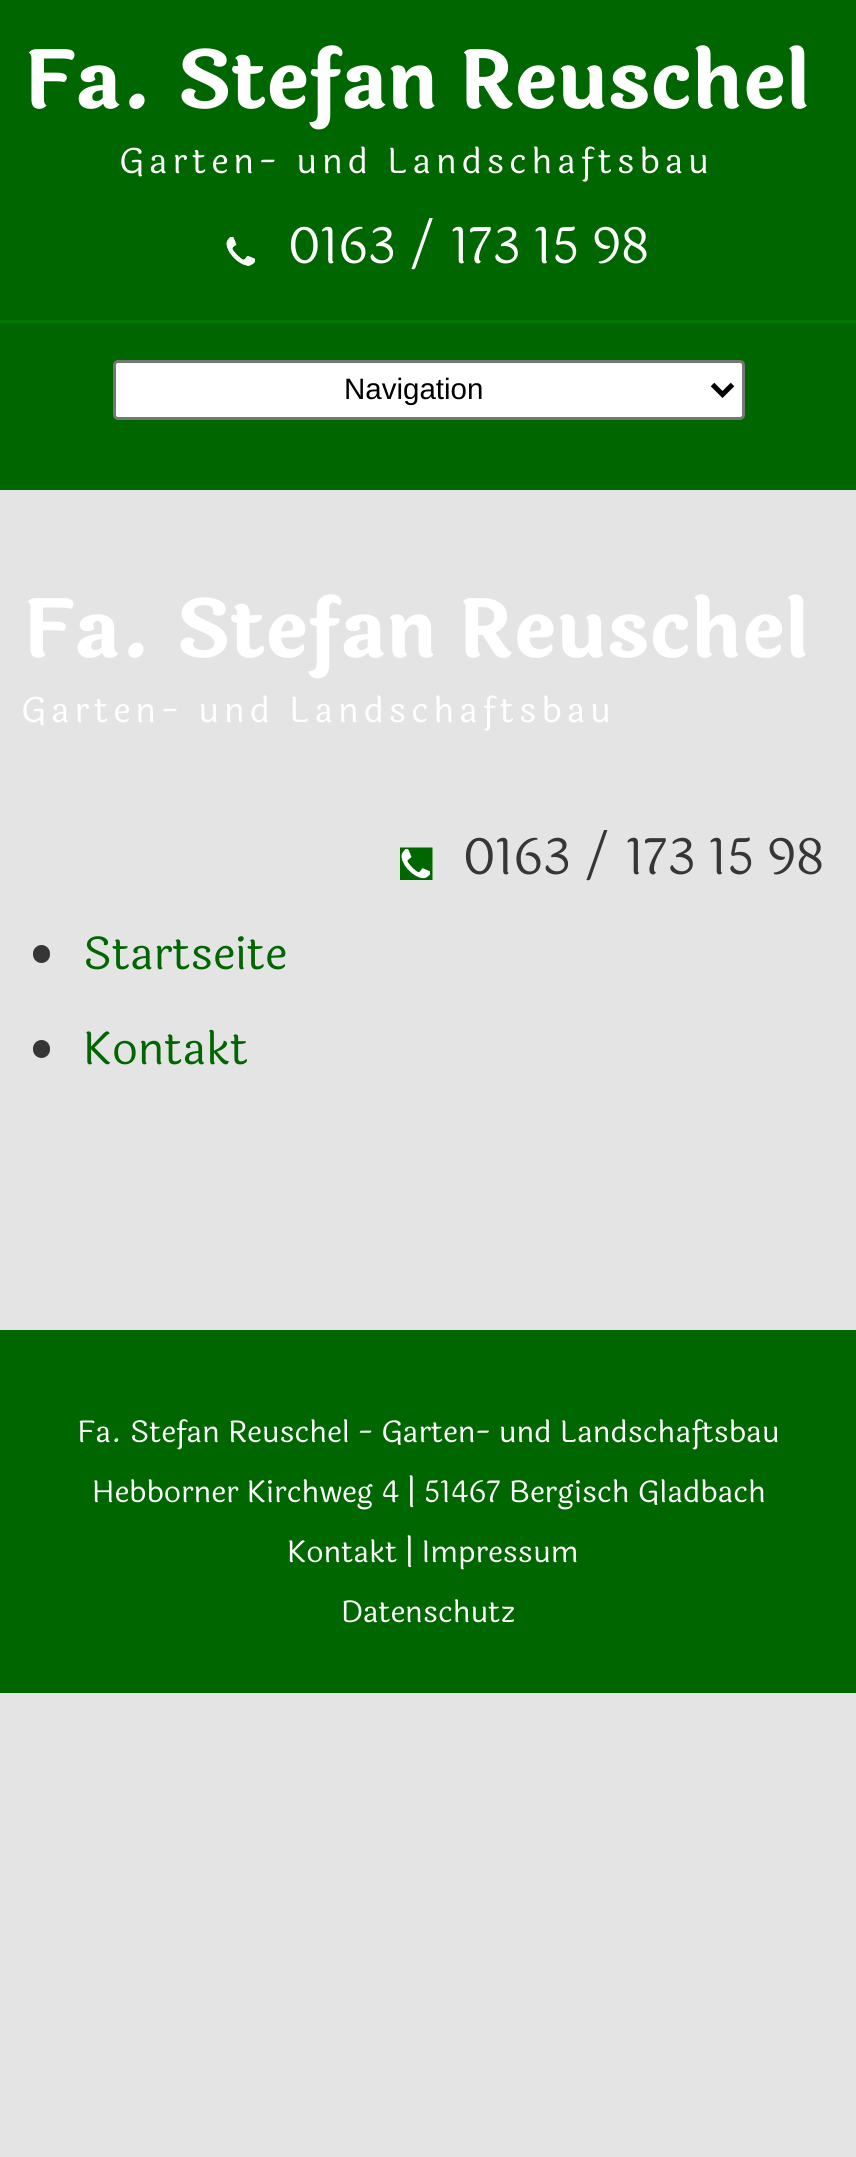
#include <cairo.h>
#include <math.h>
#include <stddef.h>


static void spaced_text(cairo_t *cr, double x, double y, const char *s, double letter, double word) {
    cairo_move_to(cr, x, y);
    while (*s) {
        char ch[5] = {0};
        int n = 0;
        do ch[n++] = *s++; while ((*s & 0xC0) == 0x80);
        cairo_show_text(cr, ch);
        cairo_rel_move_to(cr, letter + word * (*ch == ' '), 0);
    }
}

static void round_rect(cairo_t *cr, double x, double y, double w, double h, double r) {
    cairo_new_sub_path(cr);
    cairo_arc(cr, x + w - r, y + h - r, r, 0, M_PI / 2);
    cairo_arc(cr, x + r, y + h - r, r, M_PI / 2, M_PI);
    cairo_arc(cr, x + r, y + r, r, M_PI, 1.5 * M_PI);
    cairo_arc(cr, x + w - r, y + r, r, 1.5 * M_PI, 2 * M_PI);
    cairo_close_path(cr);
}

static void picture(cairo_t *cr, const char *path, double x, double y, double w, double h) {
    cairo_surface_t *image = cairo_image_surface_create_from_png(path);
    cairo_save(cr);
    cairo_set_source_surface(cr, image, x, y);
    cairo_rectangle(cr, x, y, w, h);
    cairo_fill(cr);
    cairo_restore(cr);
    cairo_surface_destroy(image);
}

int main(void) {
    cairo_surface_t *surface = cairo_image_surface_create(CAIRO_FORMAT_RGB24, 856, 2157);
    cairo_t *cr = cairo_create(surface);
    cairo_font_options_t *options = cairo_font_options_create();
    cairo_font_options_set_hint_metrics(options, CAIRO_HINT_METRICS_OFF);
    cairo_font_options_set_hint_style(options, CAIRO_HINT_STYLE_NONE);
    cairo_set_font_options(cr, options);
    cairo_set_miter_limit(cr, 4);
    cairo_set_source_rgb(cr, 0.894, 0.894, 0.894);
    cairo_paint(cr);
    cairo_set_source_rgb(cr, 0, 0.4, 0);
    cairo_rectangle(cr, 0, 0, 856, 320);
    cairo_fill(cr);
    cairo_set_source_rgb(cr, 0.012, 0.467, 0.012);
    cairo_rectangle(cr, 0, 320, 856, 3);
    cairo_fill(cr);
    cairo_select_font_face(cr, "Laila", CAIRO_FONT_SLANT_NORMAL, CAIRO_FONT_WEIGHT_BOLD);
    cairo_set_font_size(cr, 80);
    cairo_set_source_rgb(cr, 1, 1, 1);
    cairo_move_to(cr, 22, 108);
    cairo_show_text(cr, "Fa. Stefan Reuschel");
    cairo_select_font_face(cr, "Laila", CAIRO_FONT_SLANT_NORMAL, CAIRO_FONT_WEIGHT_NORMAL);
    cairo_set_font_size(cr, 35);
    spaced_text(cr, 119, 173, "Garten- und Landschaftsbau", 5, 0);
    picture(cr, "img1.png", 226, 236, 29, 30);
    cairo_save(cr);
    cairo_rectangle(cr, 33, 218, 792, 90);
    cairo_clip(cr);
    cairo_set_font_size(cr, 50);
    cairo_move_to(cr, 288, 263);
    cairo_show_text(cr, "0163 / 173 15 98");
    cairo_restore(cr);
    cairo_set_source_rgb(cr, 0, 0.4, 0);
    cairo_rectangle(cr, 0, 323, 856, 167);
    cairo_fill(cr);
    cairo_set_source_rgb(cr, 1, 1, 1);
    round_rect(cr, 114.5, 361.5, 629, 57, 3.5);
    cairo_fill_preserve(cr);
    cairo_set_source_rgb(cr, 0.463, 0.463, 0.463);
    cairo_set_line_width(cr, 3);
    cairo_stroke(cr);
    cairo_new_path(cr);
    cairo_move_to(cr, 712.5, 384.5);
    cairo_line_to(cr, 722.5, 394.5);
    cairo_line_to(cr, 732.5, 384.5);
    cairo_set_source_rgb(cr, 0, 0, 0);
    cairo_set_line_width(cr, 5);
    cairo_stroke(cr);
    cairo_select_font_face(cr, "Liberation Sans", CAIRO_FONT_SLANT_NORMAL, CAIRO_FONT_WEIGHT_NORMAL);
    cairo_set_font_size(cr, 29.5);
    cairo_move_to(cr, 344, 399);
    cairo_show_text(cr, "Navigation");
    cairo_select_font_face(cr, "Laila", CAIRO_FONT_SLANT_NORMAL, CAIRO_FONT_WEIGHT_BOLD);
    cairo_set_font_size(cr, 80);
    cairo_set_source_rgb(cr, 1, 1, 1);
    cairo_move_to(cr, 21, 657);
    cairo_show_text(cr, "Fa. Stefan Reuschel");
    cairo_select_font_face(cr, "Laila", CAIRO_FONT_SLANT_NORMAL, CAIRO_FONT_WEIGHT_NORMAL);
    cairo_set_font_size(cr, 35);
    spaced_text(cr, 21, 722, "Garten- und Landschaftsbau", 5, 0);
    picture(cr, "img2.png", 400, 847, 33, 33);
    cairo_save(cr);
    cairo_rectangle(cr, 33, 830, 792, 90);
    cairo_clip(cr);
    cairo_set_font_size(cr, 50);
    cairo_set_source_rgb(cr, 0.212, 0.212, 0.212);
    cairo_move_to(cr, 463, 874);
    cairo_show_text(cr, "0163 / 173 15 98");
    cairo_restore(cr);
    cairo_set_source_rgb(cr, 0.212, 0.212, 0.212);
    round_rect(cr, 33, 945, 17, 18, 8.5);
    cairo_fill(cr);
    cairo_set_font_size(cr, 45);
    cairo_set_source_rgb(cr, 0, 0.4, 0);
    cairo_move_to(cr, 83, 969);
    cairo_show_text(cr, "Startseite");
    cairo_set_source_rgb(cr, 0.212, 0.212, 0.212);
    round_rect(cr, 33, 1040, 17, 18, 8.5);
    cairo_fill(cr);
    cairo_set_source_rgb(cr, 0, 0.4, 0);
    cairo_move_to(cr, 83, 1064);
    cairo_show_text(cr, "Kontakt");
    cairo_rectangle(cr, 0, 1330, 856, 363);
    cairo_fill(cr);
    cairo_set_font_size(cr, 30);
    cairo_set_source_rgb(cr, 1, 1, 1);
    cairo_move_to(cr, 77, 1442);
    cairo_show_text(cr, "Fa. Stefan Reuschel - Garten- und Landschaftsbau");
    cairo_move_to(cr, 92, 1502);
    cairo_show_text(cr, "Hebborner Kirchweg 4 | 51467 Bergisch Gladbach");
    cairo_move_to(cr, 287, 1562);
    cairo_show_text(cr, "Kontakt | Impressum");
    cairo_move_to(cr, 341, 1622);
    cairo_show_text(cr, "Datenschutz");
    cairo_surface_write_to_png(surface, "page.png");
    cairo_font_options_destroy(options);
    cairo_destroy(cr);
    cairo_surface_destroy(surface);
    return 0;
}
